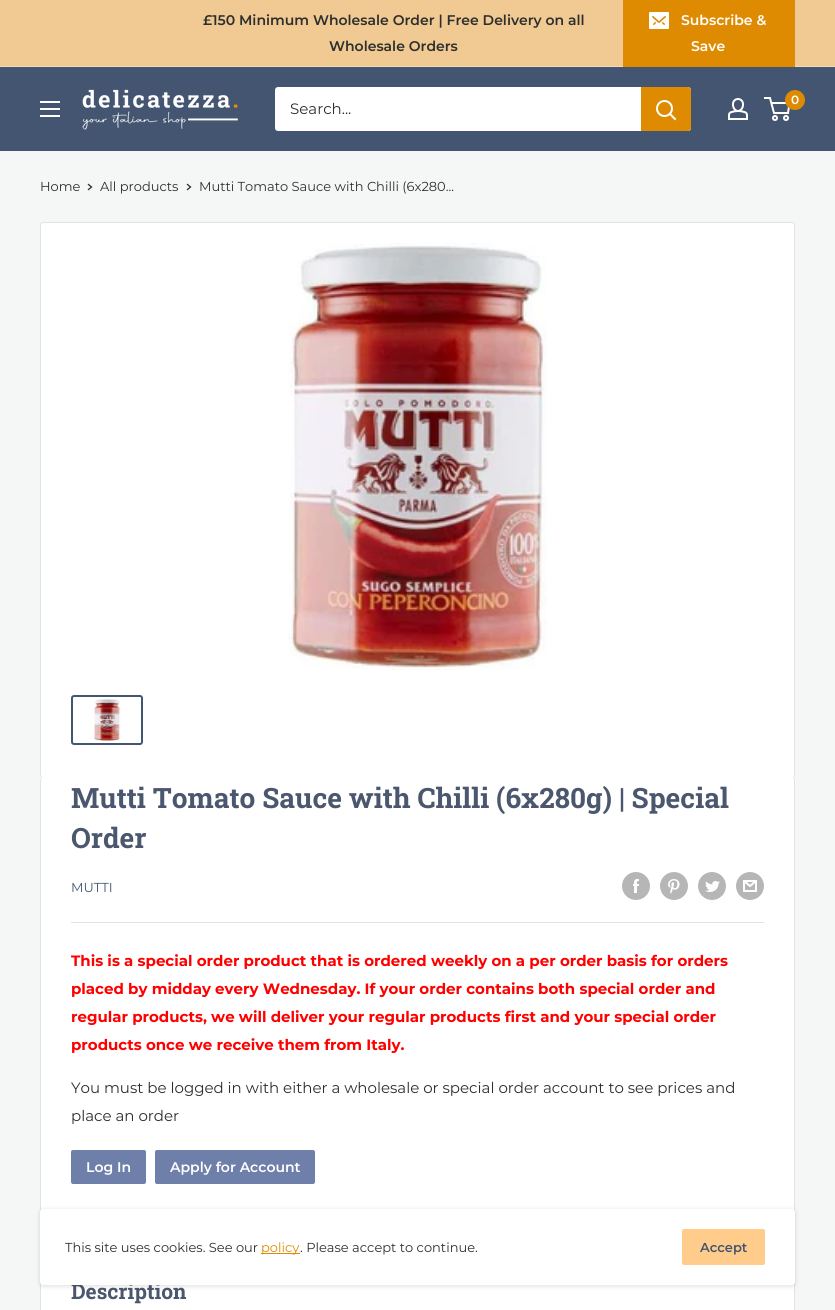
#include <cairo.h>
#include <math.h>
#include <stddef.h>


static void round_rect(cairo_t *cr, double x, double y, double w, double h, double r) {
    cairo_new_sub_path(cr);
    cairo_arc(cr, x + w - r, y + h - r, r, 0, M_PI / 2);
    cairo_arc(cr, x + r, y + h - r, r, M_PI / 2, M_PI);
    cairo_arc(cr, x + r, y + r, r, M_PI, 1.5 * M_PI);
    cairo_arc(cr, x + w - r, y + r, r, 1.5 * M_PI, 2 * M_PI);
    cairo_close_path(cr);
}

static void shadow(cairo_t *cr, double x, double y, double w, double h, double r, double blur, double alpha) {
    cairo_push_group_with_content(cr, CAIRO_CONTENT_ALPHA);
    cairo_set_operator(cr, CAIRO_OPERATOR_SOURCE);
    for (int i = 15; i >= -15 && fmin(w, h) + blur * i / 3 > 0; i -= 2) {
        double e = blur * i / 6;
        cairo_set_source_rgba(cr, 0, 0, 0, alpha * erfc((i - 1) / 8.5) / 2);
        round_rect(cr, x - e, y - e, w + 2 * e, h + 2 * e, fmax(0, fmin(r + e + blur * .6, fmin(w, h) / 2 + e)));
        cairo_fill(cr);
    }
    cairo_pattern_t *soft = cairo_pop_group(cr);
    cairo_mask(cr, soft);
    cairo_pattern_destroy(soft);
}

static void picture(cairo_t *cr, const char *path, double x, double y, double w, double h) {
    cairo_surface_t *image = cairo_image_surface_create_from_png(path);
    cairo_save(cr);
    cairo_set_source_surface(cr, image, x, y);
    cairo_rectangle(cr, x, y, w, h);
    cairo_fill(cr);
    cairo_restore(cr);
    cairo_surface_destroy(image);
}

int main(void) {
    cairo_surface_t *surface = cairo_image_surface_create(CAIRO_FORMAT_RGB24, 835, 1310);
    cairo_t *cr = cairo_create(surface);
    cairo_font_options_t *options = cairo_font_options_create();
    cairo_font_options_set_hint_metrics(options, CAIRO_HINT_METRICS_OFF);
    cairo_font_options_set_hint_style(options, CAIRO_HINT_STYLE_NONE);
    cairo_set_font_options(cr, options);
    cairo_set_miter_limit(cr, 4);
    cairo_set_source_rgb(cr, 0.957, 0.965, 0.961);
    cairo_paint(cr);
    cairo_set_source_rgb(cr, 0.941, 0.792, 0.573);
    cairo_rectangle(cr, 0, 0, 835, 66);
    cairo_fill(cr);
    cairo_set_source_rgb(cr, 0.961, 0.855, 0.702);
    cairo_rectangle(cr, 0, 66, 835, 1);
    cairo_fill(cr);
    cairo_select_font_face(cr, "Montserrat SemiBold", CAIRO_FONT_SLANT_NORMAL, CAIRO_FONT_WEIGHT_NORMAL);
    cairo_set_font_size(cr, 14);
    cairo_set_source_rgb(cr, 0.18, 0.18, 0.18);
    cairo_move_to(cr, 203, 25);
    cairo_show_text(cr, "£150 Minimum Wholesale Order | Free Delivery on all");
    cairo_move_to(cr, 329, 51);
    cairo_show_text(cr, "Wholesale Orders");
    cairo_set_source_rgb(cr, 0.871, 0.545, 0.008);
    cairo_rectangle(cr, 623, 0, 172, 67);
    cairo_fill(cr);
    picture(cr, "img1.png", 649, 12, 20, 17);
    cairo_set_source_rgb(cr, 1, 1, 1);
    cairo_move_to(cr, 681, 25);
    cairo_show_text(cr, "Subscribe &");
    cairo_move_to(cr, 691, 51);
    cairo_show_text(cr, "Save");
    cairo_set_source_rgb(cr, 0.263, 0.333, 0.439);
    cairo_rectangle(cr, 0, 67, 835, 84);
    cairo_fill(cr);
    picture(cr, "img2.png", 82, 89, 156, 41);
    picture(cr, "img3.png", 728, 98, 20, 22);
    cairo_arc(cr, 775, 118, 2, 0, 2 * M_PI);
    cairo_set_source_rgb(cr, 1, 1, 1);
    cairo_stroke(cr);
    cairo_arc(cr, 786, 118, 2, 0, 2 * M_PI);
    cairo_stroke(cr);
    cairo_new_path(cr);
    cairo_move_to(cr, 771.5, 103);
    cairo_line_to(cr, 789.5, 103);
    cairo_line_to(cr, 788, 113);
    cairo_line_to(cr, 774, 113);
    cairo_line_to(cr, 770, 98);
    cairo_line_to(cr, 764, 98);
    cairo_stroke(cr);
    cairo_set_source_rgb(cr, 0.871, 0.545, 0.008);
    cairo_arc(cr, 795, 100, 10, 0, 2 * M_PI);
    cairo_fill(cr);
    cairo_set_font_size(cr, 12);
    cairo_set_source_rgb(cr, 1, 1, 1);
    cairo_move_to(cr, 791, 104);
    cairo_show_text(cr, "0");
    picture(cr, "img4.png", 40, 101, 20, 16);
    round_rect(cr, 275, 87, 416, 44, 3);
    cairo_fill(cr);
    cairo_select_font_face(cr, "Montserrat", CAIRO_FONT_SLANT_NORMAL, CAIRO_FONT_WEIGHT_NORMAL);
    cairo_set_font_size(cr, 15);
    cairo_set_source_rgb(cr, 0.18, 0.18, 0.18);
    cairo_move_to(cr, 290, 114);
    cairo_show_text(cr, "Search...");
    cairo_set_source_rgb(cr, 0.871, 0.545, 0.008);
    cairo_new_path(cr);
    cairo_move_to(cr, 641, 87);
    cairo_line_to(cr, 688, 87);
    cairo_curve_to(cr, 689.5, 87, 691, 88.5, 691, 90);
    cairo_line_to(cr, 691, 128);
    cairo_curve_to(cr, 691, 129.5, 689.5, 131, 688, 131);
    cairo_line_to(cr, 641, 131);
    cairo_close_path(cr);
    cairo_fill(cr);
    cairo_new_path(cr);
    cairo_move_to(cr, 675, 119);
    cairo_line_to(cr, 670, 114);
    cairo_set_source_rgb(cr, 1, 1, 1);
    cairo_set_line_cap(cr, CAIRO_LINE_CAP_SQUARE);
    cairo_stroke(cr);
    cairo_arc(cr, 664.5, 108.5, 7.5, 0, 2 * M_PI);
    cairo_set_line_cap(cr, CAIRO_LINE_CAP_BUTT);
    cairo_stroke(cr);
    cairo_set_font_size(cr, 13);
    cairo_set_source_rgb(cr, 0.18, 0.18, 0.18);
    cairo_move_to(cr, 40, 191);
    cairo_show_text(cr, "Home");
    cairo_new_path(cr);
    cairo_move_to(cr, 88.5, 184.5);
    cairo_line_to(cr, 91.5, 187);
    cairo_line_to(cr, 88.5, 189.5);
    cairo_set_line_width(cr, 1.3);
    cairo_set_line_cap(cr, CAIRO_LINE_CAP_SQUARE);
    cairo_stroke(cr);
    cairo_move_to(cr, 100, 191);
    cairo_show_text(cr, "All products");
    cairo_new_path(cr);
    cairo_move_to(cr, 187.5, 184.5);
    cairo_line_to(cr, 190.5, 187);
    cairo_line_to(cr, 187.5, 189.5);
    cairo_stroke(cr);
    cairo_move_to(cr, 199, 191);
    cairo_show_text(cr, "Mutti Tomato Sauce with Chilli (6x280...");
    cairo_set_source_rgb(cr, 1, 1, 1);
    round_rect(cr, 40.5, 222.5, 754, 555, 2.5);
    cairo_fill_preserve(cr);
    cairo_set_source_rgb(cr, 0.882, 0.89, 0.894);
    cairo_set_line_width(cr, 1);
    cairo_set_line_cap(cr, CAIRO_LINE_CAP_BUTT);
    cairo_stroke(cr);
    picture(cr, "img5.png", 288, 243, 259, 427);
    round_rect(cr, 72, 696, 70, 48, 2);
    cairo_set_source_rgb(cr, 0.263, 0.333, 0.439);
    cairo_set_line_width(cr, 2);
    cairo_stroke(cr);
    picture(cr, "img6.png", 93, 699, 28, 42);
    cairo_set_source_rgb(cr, 1, 1, 1);
    cairo_new_path(cr);
    cairo_move_to(cr, 43, 777);
    cairo_curve_to(cr, 41, 777, 40, 779, 40, 781);
    cairo_curve_to(cr, 40, 779, 41, 778, 43, 778);
    cairo_line_to(cr, 792, 778);
    cairo_curve_to(cr, 794, 778, 795, 779, 795, 781);
    cairo_curve_to(cr, 795, 779, 794, 777, 792, 777);
    cairo_close_path(cr);
    cairo_fill(cr);
    round_rect(cr, 40, 778, 755, 437, 3);
    cairo_fill(cr);
    cairo_set_source_rgb(cr, 0.882, 0.89, 0.894);
    cairo_set_fill_rule(cr, CAIRO_FILL_RULE_EVEN_ODD);
    cairo_new_path(cr);
    cairo_move_to(cr, 43, 778);
    cairo_line_to(cr, 792, 778);
    cairo_curve_to(cr, 794, 778, 795, 779, 795, 781);
    cairo_line_to(cr, 795, 1212);
    cairo_curve_to(cr, 795, 1214, 794, 1215, 792, 1215);
    cairo_line_to(cr, 43, 1215);
    cairo_curve_to(cr, 41, 1215, 40, 1214, 40, 1212);
    cairo_line_to(cr, 40, 781);
    cairo_curve_to(cr, 40, 779, 41, 778, 43, 778);
    cairo_close_path(cr);
    cairo_move_to(cr, 43, 778);
    cairo_line_to(cr, 792, 778);
    cairo_curve_to(cr, 793, 778, 794, 779, 794, 781);
    cairo_line_to(cr, 794, 1212);
    cairo_curve_to(cr, 794, 1213, 793, 1214, 792, 1214);
    cairo_line_to(cr, 43, 1214);
    cairo_curve_to(cr, 42, 1214, 41, 1213, 41, 1212);
    cairo_line_to(cr, 41, 781);
    cairo_curve_to(cr, 41, 779, 42, 778, 43, 778);
    cairo_close_path(cr);
    cairo_fill(cr);
    cairo_select_font_face(cr, "Roboto Slab", CAIRO_FONT_SLANT_NORMAL, CAIRO_FONT_WEIGHT_BOLD);
    cairo_set_font_size(cr, 28);
    cairo_set_source_rgb(cr, 0.294, 0.341, 0.431);
    cairo_move_to(cr, 71, 808);
    cairo_show_text(cr, "Mutti Tomato Sauce with Chilli (6x280g) | Special");
    cairo_move_to(cr, 71, 848);
    cairo_show_text(cr, "Order");
    cairo_select_font_face(cr, "Montserrat", CAIRO_FONT_SLANT_NORMAL, CAIRO_FONT_WEIGHT_NORMAL);
    cairo_set_font_size(cr, 13);
    cairo_set_source_rgb(cr, 0.263, 0.333, 0.439);
    cairo_move_to(cr, 71, 892);
    cairo_show_text(cr, "MUTTI");
    picture(cr, "img7.png", 622, 872, 28, 28);
    picture(cr, "img8.png", 660, 872, 28, 28);
    picture(cr, "img9.png", 698, 872, 28, 28);
    picture(cr, "img10.png", 736, 872, 28, 28);
    cairo_set_source_rgb(cr, 0.882, 0.89, 0.894);
    cairo_rectangle(cr, 71, 922, 693, 1);
    cairo_fill(cr);
    cairo_select_font_face(cr, "Montserrat", CAIRO_FONT_SLANT_NORMAL, CAIRO_FONT_WEIGHT_BOLD);
    cairo_set_font_size(cr, 15);
    cairo_set_source_rgb(cr, 1, 0, 0);
    cairo_move_to(cr, 71, 966);
    cairo_show_text(cr, "This is a special order product that is ordered weekly on a per order basis for orders");
    cairo_move_to(cr, 71, 994);
    cairo_show_text(cr, "placed by midday every Wednesday. If your order contains both special order and");
    cairo_move_to(cr, 71, 1022);
    cairo_show_text(cr, "regular products, we will deliver your regular products first and your special order");
    cairo_move_to(cr, 71, 1050);
    cairo_show_text(cr, "products once we receive them from Italy.");
    cairo_select_font_face(cr, "Montserrat", CAIRO_FONT_SLANT_NORMAL, CAIRO_FONT_WEIGHT_NORMAL);
    cairo_set_source_rgb(cr, 0.18, 0.18, 0.18);
    cairo_move_to(cr, 71, 1093);
    cairo_show_text(cr, "You must be logged in with either a wholesale or special order account to see prices and");
    cairo_move_to(cr, 71, 1121);
    cairo_show_text(cr, "place an order");
    cairo_set_source_rgb(cr, 0.431, 0.498, 0.667);
    round_rect(cr, 71, 1150, 75, 34, 2);
    cairo_fill(cr);
    cairo_select_font_face(cr, "Montserrat SemiBold", CAIRO_FONT_SLANT_NORMAL, CAIRO_FONT_WEIGHT_NORMAL);
    cairo_set_font_size(cr, 14);
    cairo_set_source_rgb(cr, 1, 1, 1);
    cairo_move_to(cr, 86, 1172);
    cairo_show_text(cr, "Log In");
    cairo_set_source_rgb(cr, 0.431, 0.498, 0.667);
    round_rect(cr, 155, 1150, 160, 34, 2);
    cairo_fill(cr);
    cairo_set_source_rgb(cr, 1, 1, 1);
    cairo_move_to(cr, 170, 1172);
    cairo_show_text(cr, "Apply for Account");
    cairo_rectangle(cr, 41, 1284, 753, 26);
    cairo_fill(cr);
    cairo_rectangle(cr, 40.5, 1245.5, 754, 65);
    cairo_set_source_rgb(cr, 0.882, 0.89, 0.894);
    cairo_set_line_width(cr, 1);
    cairo_stroke(cr);
    cairo_select_font_face(cr, "Roboto Slab", CAIRO_FONT_SLANT_NORMAL, CAIRO_FONT_WEIGHT_BOLD);
    cairo_set_font_size(cr, 21);
    cairo_set_source_rgb(cr, 0.294, 0.341, 0.431);
    cairo_move_to(cr, 71, 1299);
    cairo_show_text(cr, "Description");
    cairo_set_source_rgb(cr, 0, 0, 0);
    shadow(cr, 39, 1209, 757, 78, 4, 2, 0.1);
    cairo_set_source_rgb(cr, 1, 1, 1);
    round_rect(cr, 40, 1209, 755, 76, 3);
    cairo_fill(cr);
    cairo_select_font_face(cr, "Montserrat", CAIRO_FONT_SLANT_NORMAL, CAIRO_FONT_WEIGHT_NORMAL);
    cairo_set_font_size(cr, 13);
    cairo_set_source_rgb(cr, 0.18, 0.18, 0.18);
    cairo_move_to(cr, 65, 1252);
    cairo_show_text(cr, "This site uses cookies. See our");
    cairo_set_source_rgb(cr, 0.871, 0.545, 0.008);
    cairo_rectangle(cr, 261, 1253, 39, 1);
    cairo_fill(cr);
    cairo_move_to(cr, 261, 1252);
    cairo_show_text(cr, "policy");
    cairo_set_source_rgb(cr, 0.18, 0.18, 0.18);
    cairo_move_to(cr, 300, 1252);
    cairo_show_text(cr, ". Please accept to continue.");
    cairo_set_source_rgb(cr, 1, 0.8, 0.549);
    round_rect(cr, 682, 1229, 83, 36, 2);
    cairo_fill(cr);
    cairo_select_font_face(cr, "Montserrat SemiBold", CAIRO_FONT_SLANT_NORMAL, CAIRO_FONT_WEIGHT_NORMAL);
    cairo_set_source_rgb(cr, 0.263, 0.333, 0.439);
    cairo_move_to(cr, 700, 1252);
    cairo_show_text(cr, "Accept");
    cairo_surface_write_to_png(surface, "page.png");
    cairo_font_options_destroy(options);
    cairo_destroy(cr);
    cairo_surface_destroy(surface);
    return 0;
}
